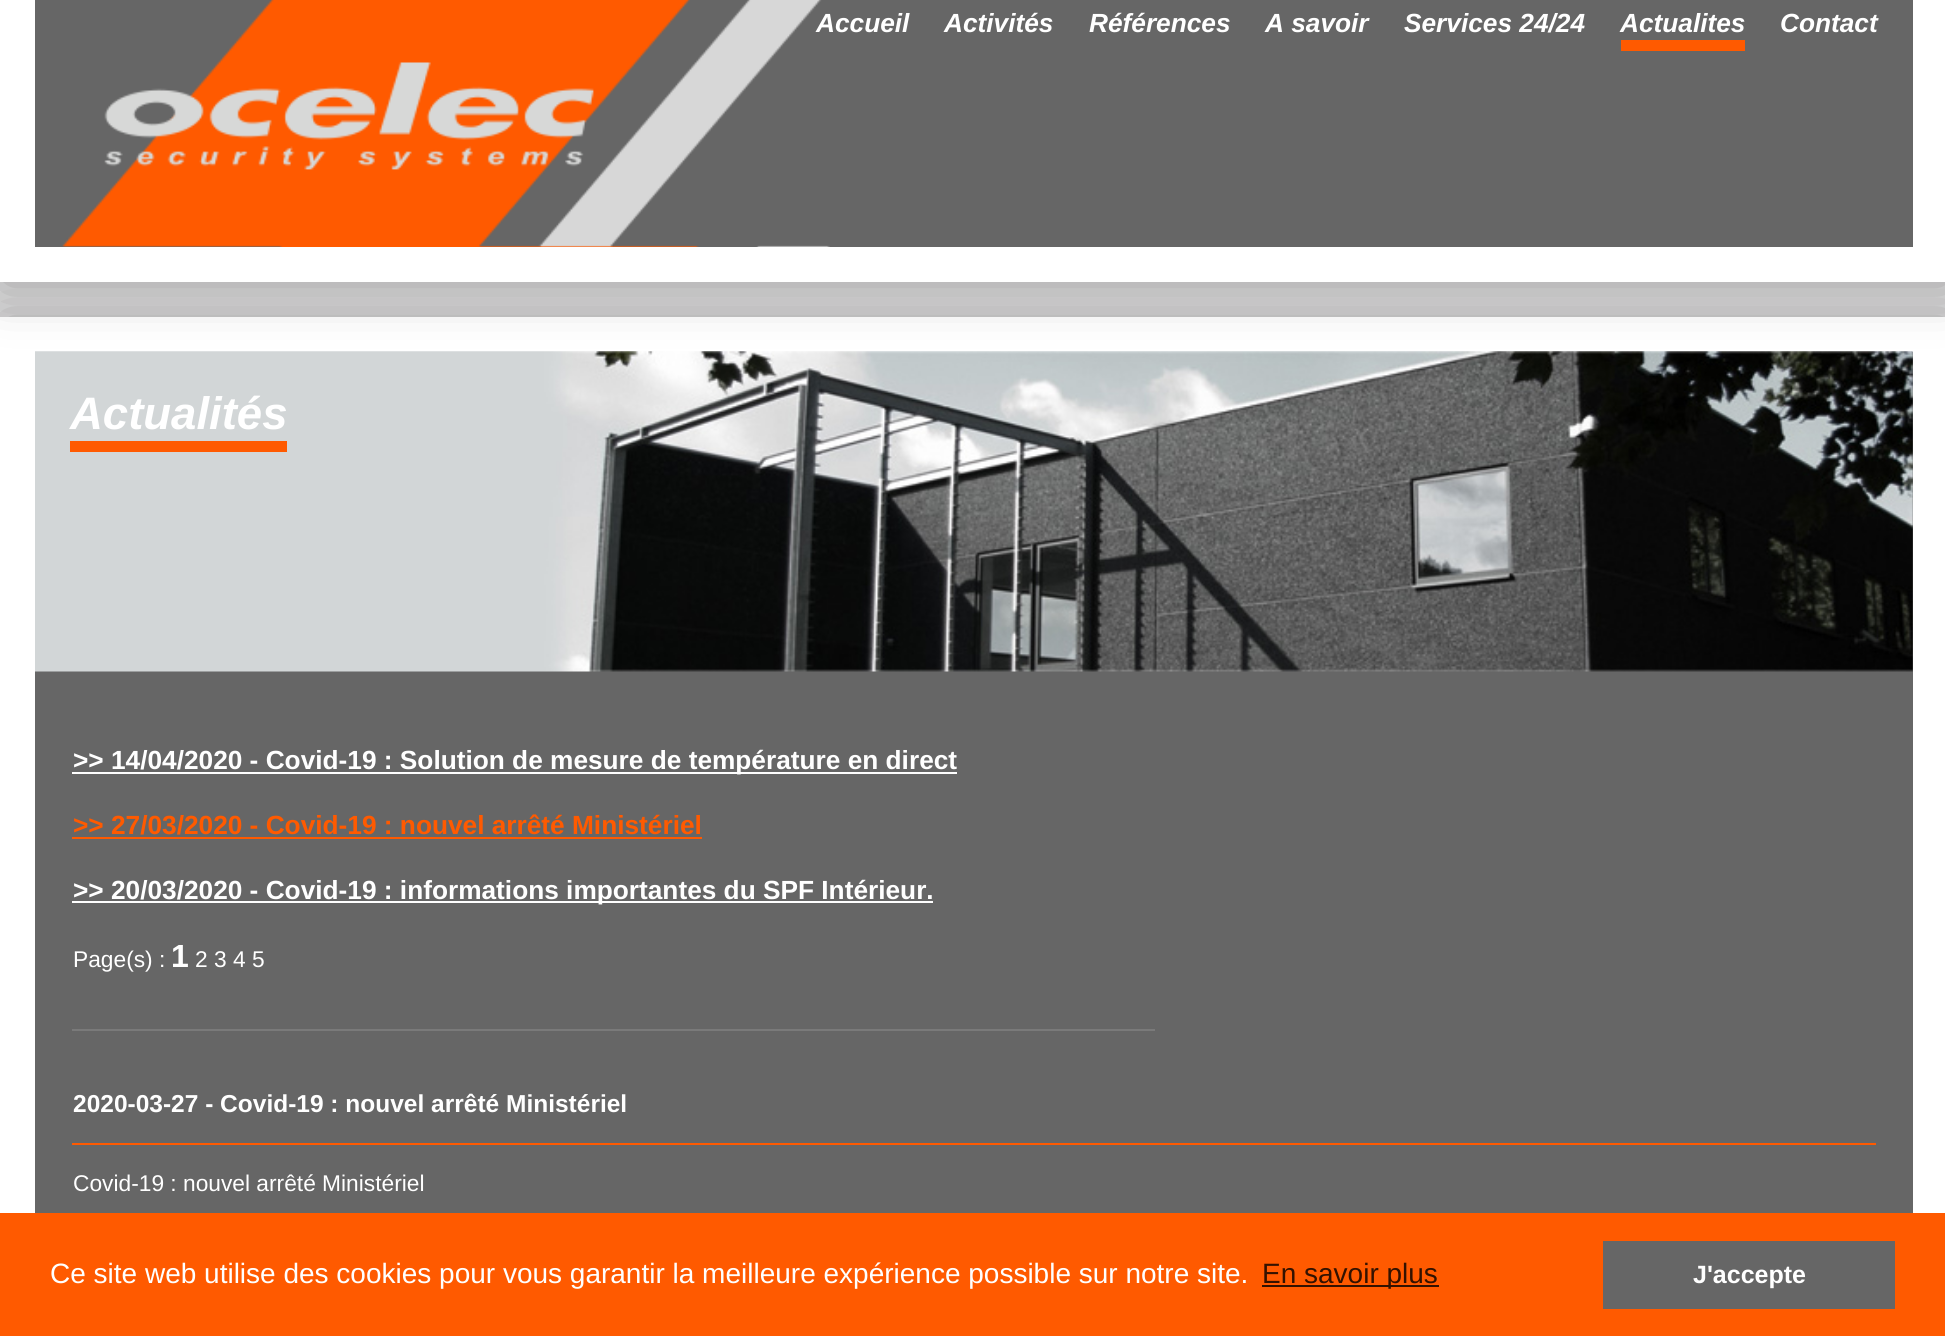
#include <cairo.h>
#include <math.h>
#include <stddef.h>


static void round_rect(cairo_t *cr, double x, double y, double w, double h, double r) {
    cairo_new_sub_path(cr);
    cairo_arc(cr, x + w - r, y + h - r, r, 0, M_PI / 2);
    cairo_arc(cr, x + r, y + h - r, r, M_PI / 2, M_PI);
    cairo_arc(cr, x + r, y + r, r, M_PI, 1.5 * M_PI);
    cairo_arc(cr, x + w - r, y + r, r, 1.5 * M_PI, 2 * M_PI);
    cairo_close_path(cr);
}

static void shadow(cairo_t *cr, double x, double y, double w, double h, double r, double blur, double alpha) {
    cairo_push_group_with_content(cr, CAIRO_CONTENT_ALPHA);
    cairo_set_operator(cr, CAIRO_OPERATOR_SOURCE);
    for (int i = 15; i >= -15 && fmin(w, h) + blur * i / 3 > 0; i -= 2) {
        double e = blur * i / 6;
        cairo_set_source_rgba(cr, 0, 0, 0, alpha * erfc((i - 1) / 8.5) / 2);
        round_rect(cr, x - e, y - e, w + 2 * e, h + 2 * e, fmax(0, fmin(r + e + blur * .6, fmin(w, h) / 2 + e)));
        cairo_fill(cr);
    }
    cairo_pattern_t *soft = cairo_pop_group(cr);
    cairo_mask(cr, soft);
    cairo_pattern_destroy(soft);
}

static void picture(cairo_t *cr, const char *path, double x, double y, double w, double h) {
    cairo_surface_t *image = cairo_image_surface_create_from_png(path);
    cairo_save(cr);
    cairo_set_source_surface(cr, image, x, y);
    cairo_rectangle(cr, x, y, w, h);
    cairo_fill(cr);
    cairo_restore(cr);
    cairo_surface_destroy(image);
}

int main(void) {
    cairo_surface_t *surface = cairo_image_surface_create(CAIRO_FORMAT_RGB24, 1945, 1336);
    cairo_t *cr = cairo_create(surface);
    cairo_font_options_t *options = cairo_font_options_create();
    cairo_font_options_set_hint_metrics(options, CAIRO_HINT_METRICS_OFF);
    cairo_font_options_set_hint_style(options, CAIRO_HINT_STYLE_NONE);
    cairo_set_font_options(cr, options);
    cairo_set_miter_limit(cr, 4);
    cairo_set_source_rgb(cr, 0.906, 0.91, 0.914);
    cairo_paint(cr);
    cairo_set_source_rgb(cr, 0.604, 0.596, 0.596);
    shadow(cr, 2, 319, 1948, 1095, 0, 26, 1);
    cairo_set_source_rgb(cr, 0.4, 0.4, 0.4);
    cairo_rectangle(cr, 35, 352, 1878, 861);
    cairo_fill(cr);
    cairo_rectangle(cr, 17.5, 334.5, 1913, 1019);
    cairo_set_source_rgb(cr, 1, 1, 1);
    cairo_set_line_width(cr, 35);
    cairo_stroke(cr);
    cairo_set_source_rgb(cr, 0.604, 0.596, 0.596);
    shadow(cr, 2, -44, 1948, 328, 0, 26, 1);
    picture(cr, "img1.png", 35, 0, 1878, 247);
    cairo_rectangle(cr, 17.5, -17.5, 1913, 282);
    cairo_set_source_rgb(cr, 1, 1, 1);
    cairo_stroke(cr);
    cairo_select_font_face(cr, "Liberation Sans", CAIRO_FONT_SLANT_ITALIC, CAIRO_FONT_WEIGHT_BOLD);
    cairo_set_font_size(cr, 26.25);
    cairo_move_to(cr, 816, 32);
    cairo_show_text(cr, "Accueil");
    cairo_move_to(cr, 944, 32);
    cairo_show_text(cr, "Activités");
    cairo_move_to(cr, 1089, 32);
    cairo_show_text(cr, "Références");
    cairo_move_to(cr, 1265, 32);
    cairo_show_text(cr, "A savoir");
    cairo_move_to(cr, 1404, 32);
    cairo_show_text(cr, "Services 24/24");
    cairo_set_source_rgb(cr, 1, 0.353, 0);
    cairo_rectangle(cr, 1621, 40, 124, 11);
    cairo_fill(cr);
    cairo_set_source_rgb(cr, 1, 1, 1);
    cairo_move_to(cr, 1620, 32);
    cairo_show_text(cr, "Actualites");
    cairo_move_to(cr, 1780, 32);
    cairo_show_text(cr, "Contact");
    picture(cr, "img2.png", 35, 351, 1878, 321);
    cairo_set_source_rgb(cr, 1, 0.353, 0);
    cairo_rectangle(cr, 70, 441, 217, 11);
    cairo_fill(cr);
    cairo_set_font_size(cr, 45.5);
    cairo_set_source_rgb(cr, 1, 1, 1);
    cairo_move_to(cr, 70, 429);
    cairo_show_text(cr, "Actualités");
    cairo_rectangle(cr, 72, 772, 885, 2);
    cairo_fill(cr);
    cairo_select_font_face(cr, "Liberation Sans", CAIRO_FONT_SLANT_NORMAL, CAIRO_FONT_WEIGHT_BOLD);
    cairo_set_font_size(cr, 26.25);
    cairo_move_to(cr, 73, 769);
    cairo_show_text(cr, ">> 14/04/2020 - Covid-19 : Solution de mesure de température en direct");
    cairo_set_source_rgb(cr, 1, 0.353, 0);
    cairo_move_to(cr, 73, 834);
    cairo_show_text(cr, ">> 27/03/2020 - Covid-19 : nouvel arrêté Ministériel");
    cairo_rectangle(cr, 72, 837, 630, 2);
    cairo_fill(cr);
    cairo_set_source_rgb(cr, 1, 1, 1);
    cairo_rectangle(cr, 72, 901, 861, 2);
    cairo_fill(cr);
    cairo_move_to(cr, 73, 899);
    cairo_show_text(cr, ">> 20/03/2020 - Covid-19 : informations importantes du SPF Intérieur.");
    cairo_select_font_face(cr, "Liberation Sans", CAIRO_FONT_SLANT_NORMAL, CAIRO_FONT_WEIGHT_NORMAL);
    cairo_set_font_size(cr, 22.75);
    cairo_move_to(cr, 73, 967);
    cairo_show_text(cr, "Page(s) :");
    cairo_select_font_face(cr, "Liberation Sans", CAIRO_FONT_SLANT_NORMAL, CAIRO_FONT_WEIGHT_BOLD);
    cairo_set_font_size(cr, 32);
    cairo_move_to(cr, 171, 967);
    cairo_show_text(cr, "1");
    cairo_select_font_face(cr, "Liberation Sans", CAIRO_FONT_SLANT_NORMAL, CAIRO_FONT_WEIGHT_NORMAL);
    cairo_set_font_size(cr, 22.75);
    cairo_move_to(cr, 195, 967);
    cairo_show_text(cr, "2 3 4 5");
    cairo_set_source_rgb(cr, 0.478, 0.478, 0.478);
    cairo_rectangle(cr, 72, 1029, 1083, 2);
    cairo_fill(cr);
    cairo_set_source_rgb(cr, 1, 0.353, 0);
    cairo_rectangle(cr, 72, 1143, 1804, 2);
    cairo_fill(cr);
    cairo_select_font_face(cr, "Liberation Sans", CAIRO_FONT_SLANT_NORMAL, CAIRO_FONT_WEIGHT_BOLD);
    cairo_set_font_size(cr, 24.5);
    cairo_set_source_rgb(cr, 1, 1, 1);
    cairo_move_to(cr, 73, 1112);
    cairo_show_text(cr, "2020-03-27 - Covid-19 : nouvel arrêté Ministériel");
    cairo_select_font_face(cr, "Liberation Sans", CAIRO_FONT_SLANT_NORMAL, CAIRO_FONT_WEIGHT_NORMAL);
    cairo_set_font_size(cr, 22.75);
    cairo_move_to(cr, 73, 1191);
    cairo_show_text(cr, "Covid-19 : nouvel arrêté Ministériel");
    cairo_set_source_rgb(cr, 1, 0.353, 0);
    cairo_rectangle(cr, 0, 1213, 1945, 123);
    cairo_fill(cr);
    cairo_set_font_size(cr, 28);
    cairo_set_source_rgb(cr, 1, 1, 1);
    cairo_move_to(cr, 50, 1283);
    cairo_show_text(cr, "Ce site web utilise des cookies pour vous garantir la meilleure expérience possible sur notre site.");
    cairo_set_source_rgb(cr, 0.2, 0.071, 0);
    cairo_rectangle(cr, 1262, 1285, 177, 2);
    cairo_fill(cr);
    cairo_move_to(cr, 1262, 1283);
    cairo_show_text(cr, "En savoir plus");
    cairo_set_source_rgb(cr, 0.4, 0.4, 0.4);
    cairo_rectangle(cr, 1603, 1241, 292, 68);
    cairo_fill(cr);
    cairo_select_font_face(cr, "Liberation Sans", CAIRO_FONT_SLANT_NORMAL, CAIRO_FONT_WEIGHT_BOLD);
    cairo_set_font_size(cr, 25);
    cairo_set_source_rgb(cr, 1, 1, 1);
    cairo_move_to(cr, 1693, 1283);
    cairo_show_text(cr, "J'accepte");
    cairo_surface_write_to_png(surface, "page.png");
    cairo_font_options_destroy(options);
    cairo_destroy(cr);
    cairo_surface_destroy(surface);
    return 0;
}
